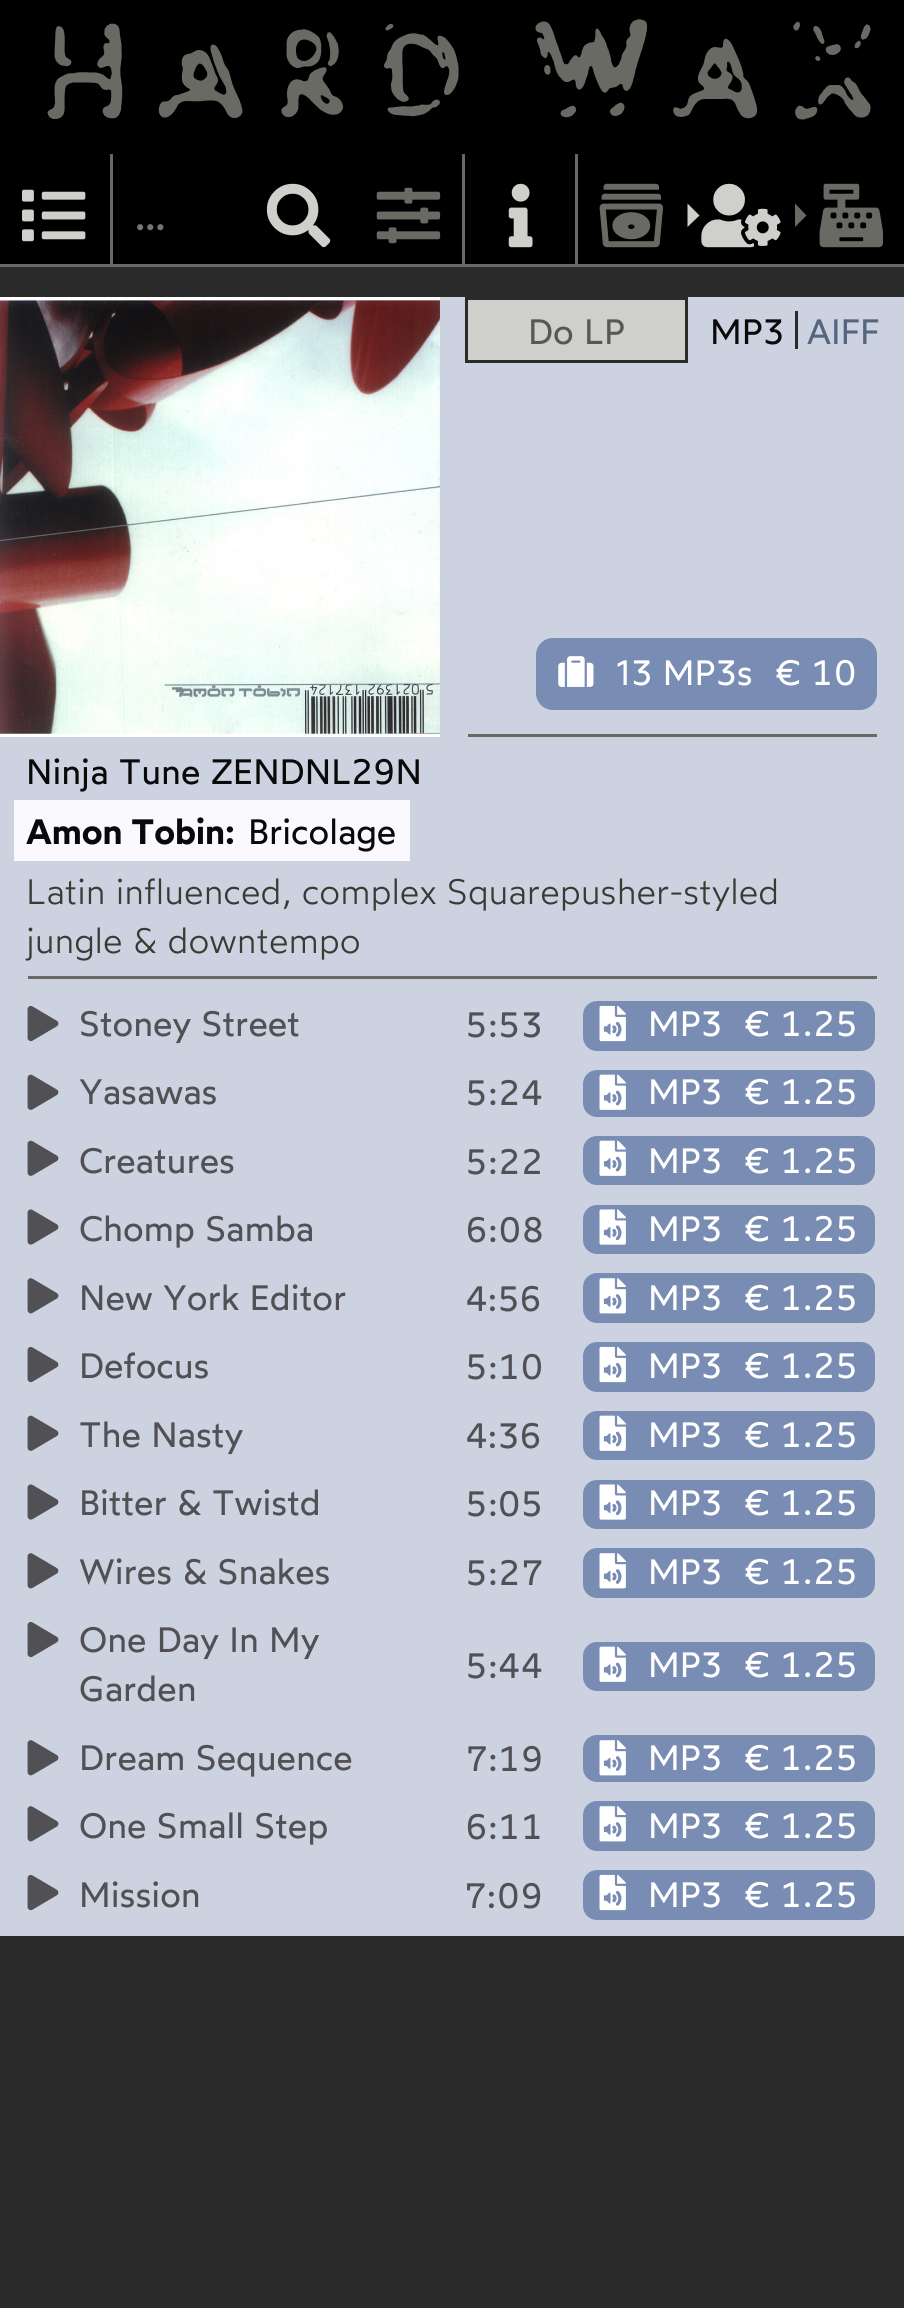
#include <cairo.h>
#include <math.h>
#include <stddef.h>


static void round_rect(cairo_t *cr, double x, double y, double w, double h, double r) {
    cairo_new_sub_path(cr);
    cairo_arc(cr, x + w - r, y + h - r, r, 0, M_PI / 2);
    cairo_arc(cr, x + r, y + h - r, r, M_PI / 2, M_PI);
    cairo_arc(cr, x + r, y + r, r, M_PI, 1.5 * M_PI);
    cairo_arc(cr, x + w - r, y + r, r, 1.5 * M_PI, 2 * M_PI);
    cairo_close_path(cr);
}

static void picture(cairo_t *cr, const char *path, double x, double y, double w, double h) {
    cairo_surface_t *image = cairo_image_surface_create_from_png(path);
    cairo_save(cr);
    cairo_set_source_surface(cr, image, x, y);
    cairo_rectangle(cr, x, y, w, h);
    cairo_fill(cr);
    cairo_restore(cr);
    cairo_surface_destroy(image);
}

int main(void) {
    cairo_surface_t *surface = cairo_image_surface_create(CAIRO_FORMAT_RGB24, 904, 2308);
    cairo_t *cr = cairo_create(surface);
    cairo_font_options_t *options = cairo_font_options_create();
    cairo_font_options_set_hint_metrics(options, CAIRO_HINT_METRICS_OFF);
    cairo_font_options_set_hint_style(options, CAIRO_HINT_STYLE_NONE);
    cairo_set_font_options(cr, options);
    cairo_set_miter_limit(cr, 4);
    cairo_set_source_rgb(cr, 0.165, 0.165, 0.165);
    cairo_paint(cr);
    cairo_set_source_rgb(cr, 0, 0, 0);
    cairo_rectangle(cr, 0, 0, 904, 264);
    cairo_fill(cr);
    picture(cr, "img1.png", 47, 19, 824, 101);
    picture(cr, "img2.png", 376, 187, 65, 57);
    cairo_set_source_rgb(cr, 0.416, 0.416, 0.392);
    cairo_rectangle(cr, 0, 264, 904, 3);
    cairo_fill(cr);
    cairo_rectangle(cr, 462, 154, 3, 113);
    cairo_fill(cr);
    picture(cr, "img3.png", 508, 183, 25, 65);
    cairo_rectangle(cr, 575, 154, 3, 113);
    cairo_fill(cr);
    picture(cr, "img4.png", 599, 183, 64, 65);
    cairo_set_source_rgb(cr, 0.812, 0.812, 0.796);
    cairo_new_path(cr);
    cairo_move_to(cr, 687.5, 203.5);
    cairo_line_to(cr, 699.5, 215.5);
    cairo_line_to(cr, 687.5, 227);
    cairo_close_path(cr);
    cairo_fill(cr);
    picture(cr, "img5.png", 701, 183, 80, 65);
    cairo_set_source_rgb(cr, 0.416, 0.416, 0.392);
    cairo_new_path(cr);
    cairo_move_to(cr, 795, 203.5);
    cairo_line_to(cr, 806.5, 215.5);
    cairo_line_to(cr, 795, 227);
    cairo_close_path(cr);
    cairo_fill(cr);
    picture(cr, "img6.png", 819, 183, 64, 65);
    picture(cr, "img7.png", 22, 189, 64, 53);
    cairo_rectangle(cr, 110, 154, 3, 113);
    cairo_fill(cr);
    cairo_select_font_face(cr, "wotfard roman", CAIRO_FONT_SLANT_NORMAL, CAIRO_FONT_WEIGHT_NORMAL);
    cairo_set_font_size(cr, 44);
    cairo_set_source_rgb(cr, 0.459, 0.459, 0.459);
    cairo_move_to(cr, 134, 230);
    cairo_show_text(cr, "…");
    picture(cr, "img8.png", 266, 183, 65, 65);
    cairo_set_source_rgb(cr, 0.8, 0.824, 0.875);
    cairo_rectangle(cr, 0, 297, 904, 1639);
    cairo_fill(cr);
    picture(cr, "img9.png", 0, 297, 440, 440);
    cairo_set_source_rgb(cr, 0.812, 0.812, 0.796);
    cairo_rectangle(cr, 466.5, 298.5, 220, 63);
    cairo_fill_preserve(cr);
    cairo_set_source_rgb(cr, 0.165, 0.165, 0.165);
    cairo_set_line_width(cr, 3);
    cairo_stroke(cr);
    cairo_set_font_size(cr, 35.2);
    cairo_set_source_rgb(cr, 0.341, 0.341, 0.333);
    cairo_move_to(cr, 528, 344);
    cairo_show_text(cr, "Do LP");
    cairo_set_source_rgb(cr, 0.039, 0.039, 0.039);
    cairo_move_to(cr, 710, 344);
    cairo_show_text(cr, "MP3");
    cairo_set_source_rgb(cr, 0.165, 0.165, 0.165);
    cairo_rectangle(cr, 795, 311, 3, 38);
    cairo_fill(cr);
    cairo_set_source_rgb(cr, 0.333, 0.392, 0.498);
    cairo_move_to(cr, 807, 344);
    cairo_show_text(cr, "AIFF");
    cairo_set_source_rgb(cr, 0.416, 0.416, 0.392);
    cairo_rectangle(cr, 468, 734, 409, 3);
    cairo_fill(cr);
    cairo_set_source_rgb(cr, 0.471, 0.549, 0.706);
    round_rect(cr, 536, 638, 341, 72, 17);
    cairo_fill(cr);
    picture(cr, "img10.png", 558, 656, 36, 31);
    cairo_set_source_rgb(cr, 1, 1, 1);
    cairo_move_to(cr, 615, 685);
    cairo_show_text(cr, "13 MP3s");
    cairo_select_font_face(cr, "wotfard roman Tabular", CAIRO_FONT_SLANT_NORMAL, CAIRO_FONT_WEIGHT_NORMAL);
    cairo_move_to(cr, 775, 685);
    cairo_show_text(cr, "€ 10");
    cairo_select_font_face(cr, "wotfard roman", CAIRO_FONT_SLANT_NORMAL, CAIRO_FONT_WEIGHT_NORMAL);
    cairo_set_source_rgb(cr, 0.039, 0.039, 0.039);
    cairo_move_to(cr, 26, 784);
    cairo_show_text(cr, "Ninja Tune ZENDNL29N");
    cairo_set_source_rgb(cr, 0.98, 0.98, 0.996);
    cairo_rectangle(cr, 14, 800, 396, 61);
    cairo_fill(cr);
    cairo_select_font_face(cr, "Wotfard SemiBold", CAIRO_FONT_SLANT_NORMAL, CAIRO_FONT_WEIGHT_NORMAL);
    cairo_set_source_rgb(cr, 0.039, 0.039, 0.039);
    cairo_move_to(cr, 26, 844);
    cairo_show_text(cr, "Amon Tobin:");
    cairo_select_font_face(cr, "wotfard roman", CAIRO_FONT_SLANT_NORMAL, CAIRO_FONT_WEIGHT_NORMAL);
    cairo_move_to(cr, 248, 844);
    cairo_show_text(cr, "Bricolage");
    cairo_select_font_face(cr, "Wotfard Light", CAIRO_FONT_SLANT_NORMAL, CAIRO_FONT_WEIGHT_NORMAL);
    cairo_set_source_rgb(cr, 0.227, 0.227, 0.204);
    cairo_move_to(cr, 26, 904);
    cairo_show_text(cr, "Latin influenced, complex Squarepusher-styled");
    cairo_move_to(cr, 26, 953);
    cairo_show_text(cr, "jungle & downtempo");
    cairo_set_source_rgb(cr, 0.416, 0.416, 0.392);
    cairo_rectangle(cr, 28, 976, 849, 3);
    cairo_fill(cr);
    picture(cr, "img11.png", 27, 1005, 32, 37);
    cairo_select_font_face(cr, "wotfard roman", CAIRO_FONT_SLANT_NORMAL, CAIRO_FONT_WEIGHT_NORMAL);
    cairo_set_source_rgb(cr, 0.314, 0.314, 0.333);
    cairo_move_to(cr, 79, 1036);
    cairo_show_text(cr, "Stoney Street");
    cairo_select_font_face(cr, "wotfard roman Tabular", CAIRO_FONT_SLANT_NORMAL, CAIRO_FONT_WEIGHT_NORMAL);
    cairo_move_to(cr, 465, 1037);
    cairo_show_text(cr, "5:53");
    cairo_set_source_rgb(cr, 0.471, 0.549, 0.706);
    round_rect(cr, 583, 1001, 292, 50, 14);
    cairo_fill(cr);
    picture(cr, "img12.png", 599, 1005, 27, 37);
    cairo_select_font_face(cr, "wotfard roman", CAIRO_FONT_SLANT_NORMAL, CAIRO_FONT_WEIGHT_NORMAL);
    cairo_set_source_rgb(cr, 1, 1, 1);
    cairo_move_to(cr, 648, 1036);
    cairo_show_text(cr, "MP3");
    cairo_select_font_face(cr, "wotfard roman Tabular", CAIRO_FONT_SLANT_NORMAL, CAIRO_FONT_WEIGHT_NORMAL);
    cairo_move_to(cr, 744, 1036);
    cairo_show_text(cr, "€ 1.25");
    picture(cr, "img13.png", 27, 1074, 32, 36);
    cairo_select_font_face(cr, "wotfard roman", CAIRO_FONT_SLANT_NORMAL, CAIRO_FONT_WEIGHT_NORMAL);
    cairo_set_source_rgb(cr, 0.314, 0.314, 0.333);
    cairo_move_to(cr, 79, 1104);
    cairo_show_text(cr, "Yasawas");
    cairo_select_font_face(cr, "wotfard roman Tabular", CAIRO_FONT_SLANT_NORMAL, CAIRO_FONT_WEIGHT_NORMAL);
    cairo_move_to(cr, 465, 1105);
    cairo_show_text(cr, "5:24");
    cairo_set_source_rgb(cr, 0.471, 0.549, 0.706);
    round_rect(cr, 583, 1070, 292, 47, 14);
    cairo_fill(cr);
    picture(cr, "img14.png", 599, 1074, 27, 36);
    cairo_select_font_face(cr, "wotfard roman", CAIRO_FONT_SLANT_NORMAL, CAIRO_FONT_WEIGHT_NORMAL);
    cairo_set_source_rgb(cr, 1, 1, 1);
    cairo_move_to(cr, 648, 1104);
    cairo_show_text(cr, "MP3");
    cairo_select_font_face(cr, "wotfard roman Tabular", CAIRO_FONT_SLANT_NORMAL, CAIRO_FONT_WEIGHT_NORMAL);
    cairo_move_to(cr, 744, 1104);
    cairo_show_text(cr, "€ 1.25");
    picture(cr, "img13.png", 27, 1140, 32, 36);
    cairo_select_font_face(cr, "wotfard roman", CAIRO_FONT_SLANT_NORMAL, CAIRO_FONT_WEIGHT_NORMAL);
    cairo_set_source_rgb(cr, 0.314, 0.314, 0.333);
    cairo_move_to(cr, 79, 1173);
    cairo_show_text(cr, "Creatures");
    cairo_select_font_face(cr, "wotfard roman Tabular", CAIRO_FONT_SLANT_NORMAL, CAIRO_FONT_WEIGHT_NORMAL);
    cairo_move_to(cr, 465, 1174);
    cairo_show_text(cr, "5:22");
    cairo_set_source_rgb(cr, 0.471, 0.549, 0.706);
    round_rect(cr, 583, 1136, 292, 49, 14);
    cairo_fill(cr);
    picture(cr, "img14.png", 599, 1140, 27, 36);
    cairo_select_font_face(cr, "wotfard roman", CAIRO_FONT_SLANT_NORMAL, CAIRO_FONT_WEIGHT_NORMAL);
    cairo_set_source_rgb(cr, 1, 1, 1);
    cairo_move_to(cr, 648, 1173);
    cairo_show_text(cr, "MP3");
    cairo_select_font_face(cr, "wotfard roman Tabular", CAIRO_FONT_SLANT_NORMAL, CAIRO_FONT_WEIGHT_NORMAL);
    cairo_move_to(cr, 744, 1173);
    cairo_show_text(cr, "€ 1.25");
    picture(cr, "img15.png", 27, 1209, 32, 36);
    cairo_select_font_face(cr, "wotfard roman", CAIRO_FONT_SLANT_NORMAL, CAIRO_FONT_WEIGHT_NORMAL);
    cairo_set_source_rgb(cr, 0.314, 0.314, 0.333);
    cairo_move_to(cr, 79, 1241);
    cairo_show_text(cr, "Chomp Samba");
    cairo_move_to(cr, 465, 1242);
    cairo_show_text(cr, "6:08");
    cairo_set_source_rgb(cr, 0.471, 0.549, 0.706);
    round_rect(cr, 583, 1205, 292, 49, 14);
    cairo_fill(cr);
    picture(cr, "img16.png", 599, 1209, 27, 36);
    cairo_set_source_rgb(cr, 1, 1, 1);
    cairo_move_to(cr, 648, 1241);
    cairo_show_text(cr, "MP3");
    cairo_select_font_face(cr, "wotfard roman Tabular", CAIRO_FONT_SLANT_NORMAL, CAIRO_FONT_WEIGHT_NORMAL);
    cairo_move_to(cr, 744, 1241);
    cairo_show_text(cr, "€ 1.25");
    picture(cr, "img17.png", 27, 1278, 32, 36);
    cairo_select_font_face(cr, "wotfard roman", CAIRO_FONT_SLANT_NORMAL, CAIRO_FONT_WEIGHT_NORMAL);
    cairo_set_source_rgb(cr, 0.314, 0.314, 0.333);
    cairo_move_to(cr, 79, 1310);
    cairo_show_text(cr, "New York Editor");
    cairo_move_to(cr, 465, 1311);
    cairo_show_text(cr, "4:56");
    cairo_set_source_rgb(cr, 0.471, 0.549, 0.706);
    round_rect(cr, 583, 1273, 292, 50, 14);
    cairo_fill(cr);
    picture(cr, "img18.png", 599, 1278, 27, 36);
    cairo_set_source_rgb(cr, 1, 1, 1);
    cairo_move_to(cr, 648, 1310);
    cairo_show_text(cr, "MP3");
    cairo_select_font_face(cr, "wotfard roman Tabular", CAIRO_FONT_SLANT_NORMAL, CAIRO_FONT_WEIGHT_NORMAL);
    cairo_move_to(cr, 744, 1310);
    cairo_show_text(cr, "€ 1.25");
    picture(cr, "img11.png", 27, 1346, 32, 37);
    cairo_select_font_face(cr, "wotfard roman", CAIRO_FONT_SLANT_NORMAL, CAIRO_FONT_WEIGHT_NORMAL);
    cairo_set_source_rgb(cr, 0.314, 0.314, 0.333);
    cairo_move_to(cr, 79, 1378);
    cairo_show_text(cr, "Defocus");
    cairo_select_font_face(cr, "wotfard roman Tabular", CAIRO_FONT_SLANT_NORMAL, CAIRO_FONT_WEIGHT_NORMAL);
    cairo_move_to(cr, 465, 1379);
    cairo_show_text(cr, "5:10");
    cairo_set_source_rgb(cr, 0.471, 0.549, 0.706);
    round_rect(cr, 583, 1342, 292, 50, 14);
    cairo_fill(cr);
    picture(cr, "img12.png", 599, 1346, 27, 37);
    cairo_select_font_face(cr, "wotfard roman", CAIRO_FONT_SLANT_NORMAL, CAIRO_FONT_WEIGHT_NORMAL);
    cairo_set_source_rgb(cr, 1, 1, 1);
    cairo_move_to(cr, 648, 1378);
    cairo_show_text(cr, "MP3");
    cairo_select_font_face(cr, "wotfard roman Tabular", CAIRO_FONT_SLANT_NORMAL, CAIRO_FONT_WEIGHT_NORMAL);
    cairo_move_to(cr, 744, 1378);
    cairo_show_text(cr, "€ 1.25");
    picture(cr, "img13.png", 27, 1415, 32, 36);
    cairo_select_font_face(cr, "wotfard roman", CAIRO_FONT_SLANT_NORMAL, CAIRO_FONT_WEIGHT_NORMAL);
    cairo_set_source_rgb(cr, 0.314, 0.314, 0.333);
    cairo_move_to(cr, 79, 1447);
    cairo_show_text(cr, "The Nasty");
    cairo_move_to(cr, 465, 1448);
    cairo_show_text(cr, "4:36");
    cairo_set_source_rgb(cr, 0.471, 0.549, 0.706);
    round_rect(cr, 583, 1411, 292, 49, 14);
    cairo_fill(cr);
    picture(cr, "img14.png", 599, 1415, 27, 36);
    cairo_set_source_rgb(cr, 1, 1, 1);
    cairo_move_to(cr, 648, 1447);
    cairo_show_text(cr, "MP3");
    cairo_select_font_face(cr, "wotfard roman Tabular", CAIRO_FONT_SLANT_NORMAL, CAIRO_FONT_WEIGHT_NORMAL);
    cairo_move_to(cr, 744, 1447);
    cairo_show_text(cr, "€ 1.25");
    picture(cr, "img15.png", 27, 1484, 32, 36);
    cairo_select_font_face(cr, "wotfard roman", CAIRO_FONT_SLANT_NORMAL, CAIRO_FONT_WEIGHT_NORMAL);
    cairo_set_source_rgb(cr, 0.314, 0.314, 0.333);
    cairo_move_to(cr, 79, 1515);
    cairo_show_text(cr, "Bitter & Twistd");
    cairo_select_font_face(cr, "wotfard roman Tabular", CAIRO_FONT_SLANT_NORMAL, CAIRO_FONT_WEIGHT_NORMAL);
    cairo_move_to(cr, 465, 1516);
    cairo_show_text(cr, "5:05");
    cairo_set_source_rgb(cr, 0.471, 0.549, 0.706);
    round_rect(cr, 583, 1480, 292, 49, 14);
    cairo_fill(cr);
    picture(cr, "img16.png", 599, 1484, 27, 36);
    cairo_select_font_face(cr, "wotfard roman", CAIRO_FONT_SLANT_NORMAL, CAIRO_FONT_WEIGHT_NORMAL);
    cairo_set_source_rgb(cr, 1, 1, 1);
    cairo_move_to(cr, 648, 1515);
    cairo_show_text(cr, "MP3");
    cairo_select_font_face(cr, "wotfard roman Tabular", CAIRO_FONT_SLANT_NORMAL, CAIRO_FONT_WEIGHT_NORMAL);
    cairo_move_to(cr, 744, 1515);
    cairo_show_text(cr, "€ 1.25");
    picture(cr, "img17.png", 27, 1553, 32, 36);
    cairo_select_font_face(cr, "wotfard roman", CAIRO_FONT_SLANT_NORMAL, CAIRO_FONT_WEIGHT_NORMAL);
    cairo_set_source_rgb(cr, 0.314, 0.314, 0.333);
    cairo_move_to(cr, 79, 1584);
    cairo_show_text(cr, "Wires & Snakes");
    cairo_select_font_face(cr, "wotfard roman Tabular", CAIRO_FONT_SLANT_NORMAL, CAIRO_FONT_WEIGHT_NORMAL);
    cairo_move_to(cr, 465, 1585);
    cairo_show_text(cr, "5:27");
    cairo_set_source_rgb(cr, 0.471, 0.549, 0.706);
    round_rect(cr, 583, 1548, 292, 50, 14);
    cairo_fill(cr);
    picture(cr, "img18.png", 599, 1553, 27, 36);
    cairo_select_font_face(cr, "wotfard roman", CAIRO_FONT_SLANT_NORMAL, CAIRO_FONT_WEIGHT_NORMAL);
    cairo_set_source_rgb(cr, 1, 1, 1);
    cairo_move_to(cr, 648, 1584);
    cairo_show_text(cr, "MP3");
    cairo_select_font_face(cr, "wotfard roman Tabular", CAIRO_FONT_SLANT_NORMAL, CAIRO_FONT_WEIGHT_NORMAL);
    cairo_move_to(cr, 744, 1584);
    cairo_show_text(cr, "€ 1.25");
    picture(cr, "img11.png", 27, 1621, 32, 37);
    cairo_select_font_face(cr, "wotfard roman", CAIRO_FONT_SLANT_NORMAL, CAIRO_FONT_WEIGHT_NORMAL);
    cairo_set_source_rgb(cr, 0.314, 0.314, 0.333);
    cairo_move_to(cr, 79, 1652);
    cairo_show_text(cr, "One Day In My");
    cairo_move_to(cr, 79, 1701);
    cairo_show_text(cr, "Garden");
    cairo_select_font_face(cr, "wotfard roman Tabular", CAIRO_FONT_SLANT_NORMAL, CAIRO_FONT_WEIGHT_NORMAL);
    cairo_move_to(cr, 465, 1678);
    cairo_show_text(cr, "5:44");
    cairo_set_source_rgb(cr, 0.471, 0.549, 0.706);
    round_rect(cr, 583, 1642, 292, 49, 14);
    cairo_fill(cr);
    picture(cr, "img14.png", 599, 1646, 27, 36);
    cairo_select_font_face(cr, "wotfard roman", CAIRO_FONT_SLANT_NORMAL, CAIRO_FONT_WEIGHT_NORMAL);
    cairo_set_source_rgb(cr, 1, 1, 1);
    cairo_move_to(cr, 648, 1677);
    cairo_show_text(cr, "MP3");
    cairo_select_font_face(cr, "wotfard roman Tabular", CAIRO_FONT_SLANT_NORMAL, CAIRO_FONT_WEIGHT_NORMAL);
    cairo_move_to(cr, 744, 1677);
    cairo_show_text(cr, "€ 1.25");
    picture(cr, "img17.png", 27, 1740, 32, 36);
    cairo_select_font_face(cr, "wotfard roman", CAIRO_FONT_SLANT_NORMAL, CAIRO_FONT_WEIGHT_NORMAL);
    cairo_set_source_rgb(cr, 0.314, 0.314, 0.333);
    cairo_move_to(cr, 79, 1770);
    cairo_show_text(cr, "Dream Sequence");
    cairo_select_font_face(cr, "wotfard roman Tabular", CAIRO_FONT_SLANT_NORMAL, CAIRO_FONT_WEIGHT_NORMAL);
    cairo_move_to(cr, 465, 1771);
    cairo_show_text(cr, "7:19");
    cairo_set_source_rgb(cr, 0.471, 0.549, 0.706);
    round_rect(cr, 583, 1735, 292, 47, 14);
    cairo_fill(cr);
    picture(cr, "img18.png", 599, 1740, 27, 36);
    cairo_select_font_face(cr, "wotfard roman", CAIRO_FONT_SLANT_NORMAL, CAIRO_FONT_WEIGHT_NORMAL);
    cairo_set_source_rgb(cr, 1, 1, 1);
    cairo_move_to(cr, 648, 1770);
    cairo_show_text(cr, "MP3");
    cairo_select_font_face(cr, "wotfard roman Tabular", CAIRO_FONT_SLANT_NORMAL, CAIRO_FONT_WEIGHT_NORMAL);
    cairo_move_to(cr, 744, 1770);
    cairo_show_text(cr, "€ 1.25");
    picture(cr, "img17.png", 27, 1806, 32, 36);
    cairo_select_font_face(cr, "wotfard roman", CAIRO_FONT_SLANT_NORMAL, CAIRO_FONT_WEIGHT_NORMAL);
    cairo_set_source_rgb(cr, 0.314, 0.314, 0.333);
    cairo_move_to(cr, 79, 1838);
    cairo_show_text(cr, "One Small Step");
    cairo_select_font_face(cr, "wotfard roman Tabular", CAIRO_FONT_SLANT_NORMAL, CAIRO_FONT_WEIGHT_NORMAL);
    cairo_move_to(cr, 465, 1839);
    cairo_show_text(cr, "6:11");
    cairo_set_source_rgb(cr, 0.471, 0.549, 0.706);
    round_rect(cr, 583, 1801, 292, 50, 14);
    cairo_fill(cr);
    picture(cr, "img18.png", 599, 1806, 27, 36);
    cairo_select_font_face(cr, "wotfard roman", CAIRO_FONT_SLANT_NORMAL, CAIRO_FONT_WEIGHT_NORMAL);
    cairo_set_source_rgb(cr, 1, 1, 1);
    cairo_move_to(cr, 648, 1838);
    cairo_show_text(cr, "MP3");
    cairo_select_font_face(cr, "wotfard roman Tabular", CAIRO_FONT_SLANT_NORMAL, CAIRO_FONT_WEIGHT_NORMAL);
    cairo_move_to(cr, 744, 1838);
    cairo_show_text(cr, "€ 1.25");
    picture(cr, "img11.png", 27, 1874, 32, 37);
    cairo_select_font_face(cr, "wotfard roman", CAIRO_FONT_SLANT_NORMAL, CAIRO_FONT_WEIGHT_NORMAL);
    cairo_set_source_rgb(cr, 0.314, 0.314, 0.333);
    cairo_move_to(cr, 79, 1907);
    cairo_show_text(cr, "Mission");
    cairo_move_to(cr, 465, 1908);
    cairo_show_text(cr, "7:09");
    cairo_set_source_rgb(cr, 0.471, 0.549, 0.706);
    round_rect(cr, 583, 1870, 292, 50, 14);
    cairo_fill(cr);
    picture(cr, "img12.png", 599, 1874, 27, 37);
    cairo_set_source_rgb(cr, 1, 1, 1);
    cairo_move_to(cr, 648, 1907);
    cairo_show_text(cr, "MP3");
    cairo_select_font_face(cr, "wotfard roman Tabular", CAIRO_FONT_SLANT_NORMAL, CAIRO_FONT_WEIGHT_NORMAL);
    cairo_move_to(cr, 744, 1907);
    cairo_show_text(cr, "€ 1.25");
    cairo_surface_write_to_png(surface, "page.png");
    cairo_font_options_destroy(options);
    cairo_destroy(cr);
    cairo_surface_destroy(surface);
    return 0;
}
